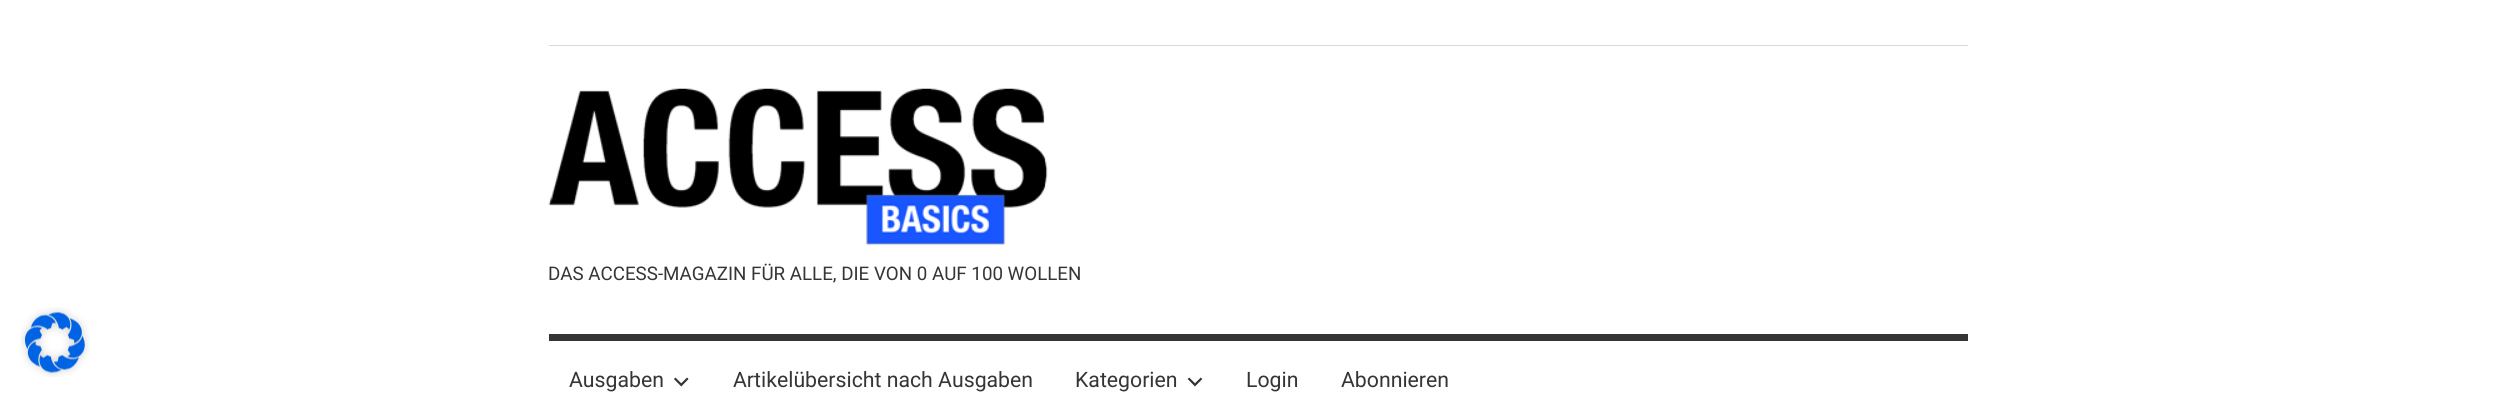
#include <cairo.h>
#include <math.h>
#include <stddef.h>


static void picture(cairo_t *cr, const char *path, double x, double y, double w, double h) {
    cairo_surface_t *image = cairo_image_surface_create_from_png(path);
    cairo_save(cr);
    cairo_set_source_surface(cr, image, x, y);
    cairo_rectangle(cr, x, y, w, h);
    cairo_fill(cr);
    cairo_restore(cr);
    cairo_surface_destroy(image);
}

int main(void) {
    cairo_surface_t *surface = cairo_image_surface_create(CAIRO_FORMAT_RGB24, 2515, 397);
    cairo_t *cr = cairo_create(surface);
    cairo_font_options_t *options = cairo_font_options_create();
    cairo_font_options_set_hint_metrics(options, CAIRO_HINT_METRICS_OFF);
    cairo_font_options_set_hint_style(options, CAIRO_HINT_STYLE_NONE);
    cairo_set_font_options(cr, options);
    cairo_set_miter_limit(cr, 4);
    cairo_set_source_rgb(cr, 1, 1, 1);
    cairo_paint(cr);
    picture(cr, "img1.png", 20, 307, 70, 70);
    cairo_set_source_rgb(cr, 0.851, 0.851, 0.851);
    cairo_rectangle(cr, 549, 45, 1419, 1);
    cairo_fill(cr);
    picture(cr, "img2.png", 548, 88, 500, 158);
    cairo_select_font_face(cr, "Roboto", CAIRO_FONT_SLANT_NORMAL, CAIRO_FONT_WEIGHT_NORMAL);
    cairo_set_font_size(cr, 18.75);
    cairo_set_source_rgb(cr, 0.208, 0.208, 0.208);
    cairo_move_to(cr, 548, 280);
    cairo_show_text(cr, "DAS ACCESS-MAGAZIN FÜR ALLE, DIE VON 0 AUF 100 WOLLEN");
    cairo_rectangle(cr, 549, 334, 1419, 7);
    cairo_fill(cr);
    cairo_set_font_size(cr, 21.25);
    cairo_move_to(cr, 569, 387);
    cairo_show_text(cr, "Ausgaben");
    picture(cr, "img3.png", 674, 377, 15, 10);
    cairo_move_to(cr, 733, 387);
    cairo_show_text(cr, "Artikelübersicht nach Ausgaben");
    cairo_move_to(cr, 1075, 387);
    cairo_show_text(cr, "Kategorien");
    picture(cr, "img4.png", 1187, 377, 16, 10);
    cairo_move_to(cr, 1246, 387);
    cairo_show_text(cr, "Login");
    cairo_move_to(cr, 1341, 387);
    cairo_show_text(cr, "Abonnieren");
    cairo_surface_write_to_png(surface, "page.png");
    cairo_font_options_destroy(options);
    cairo_destroy(cr);
    cairo_surface_destroy(surface);
    return 0;
}
